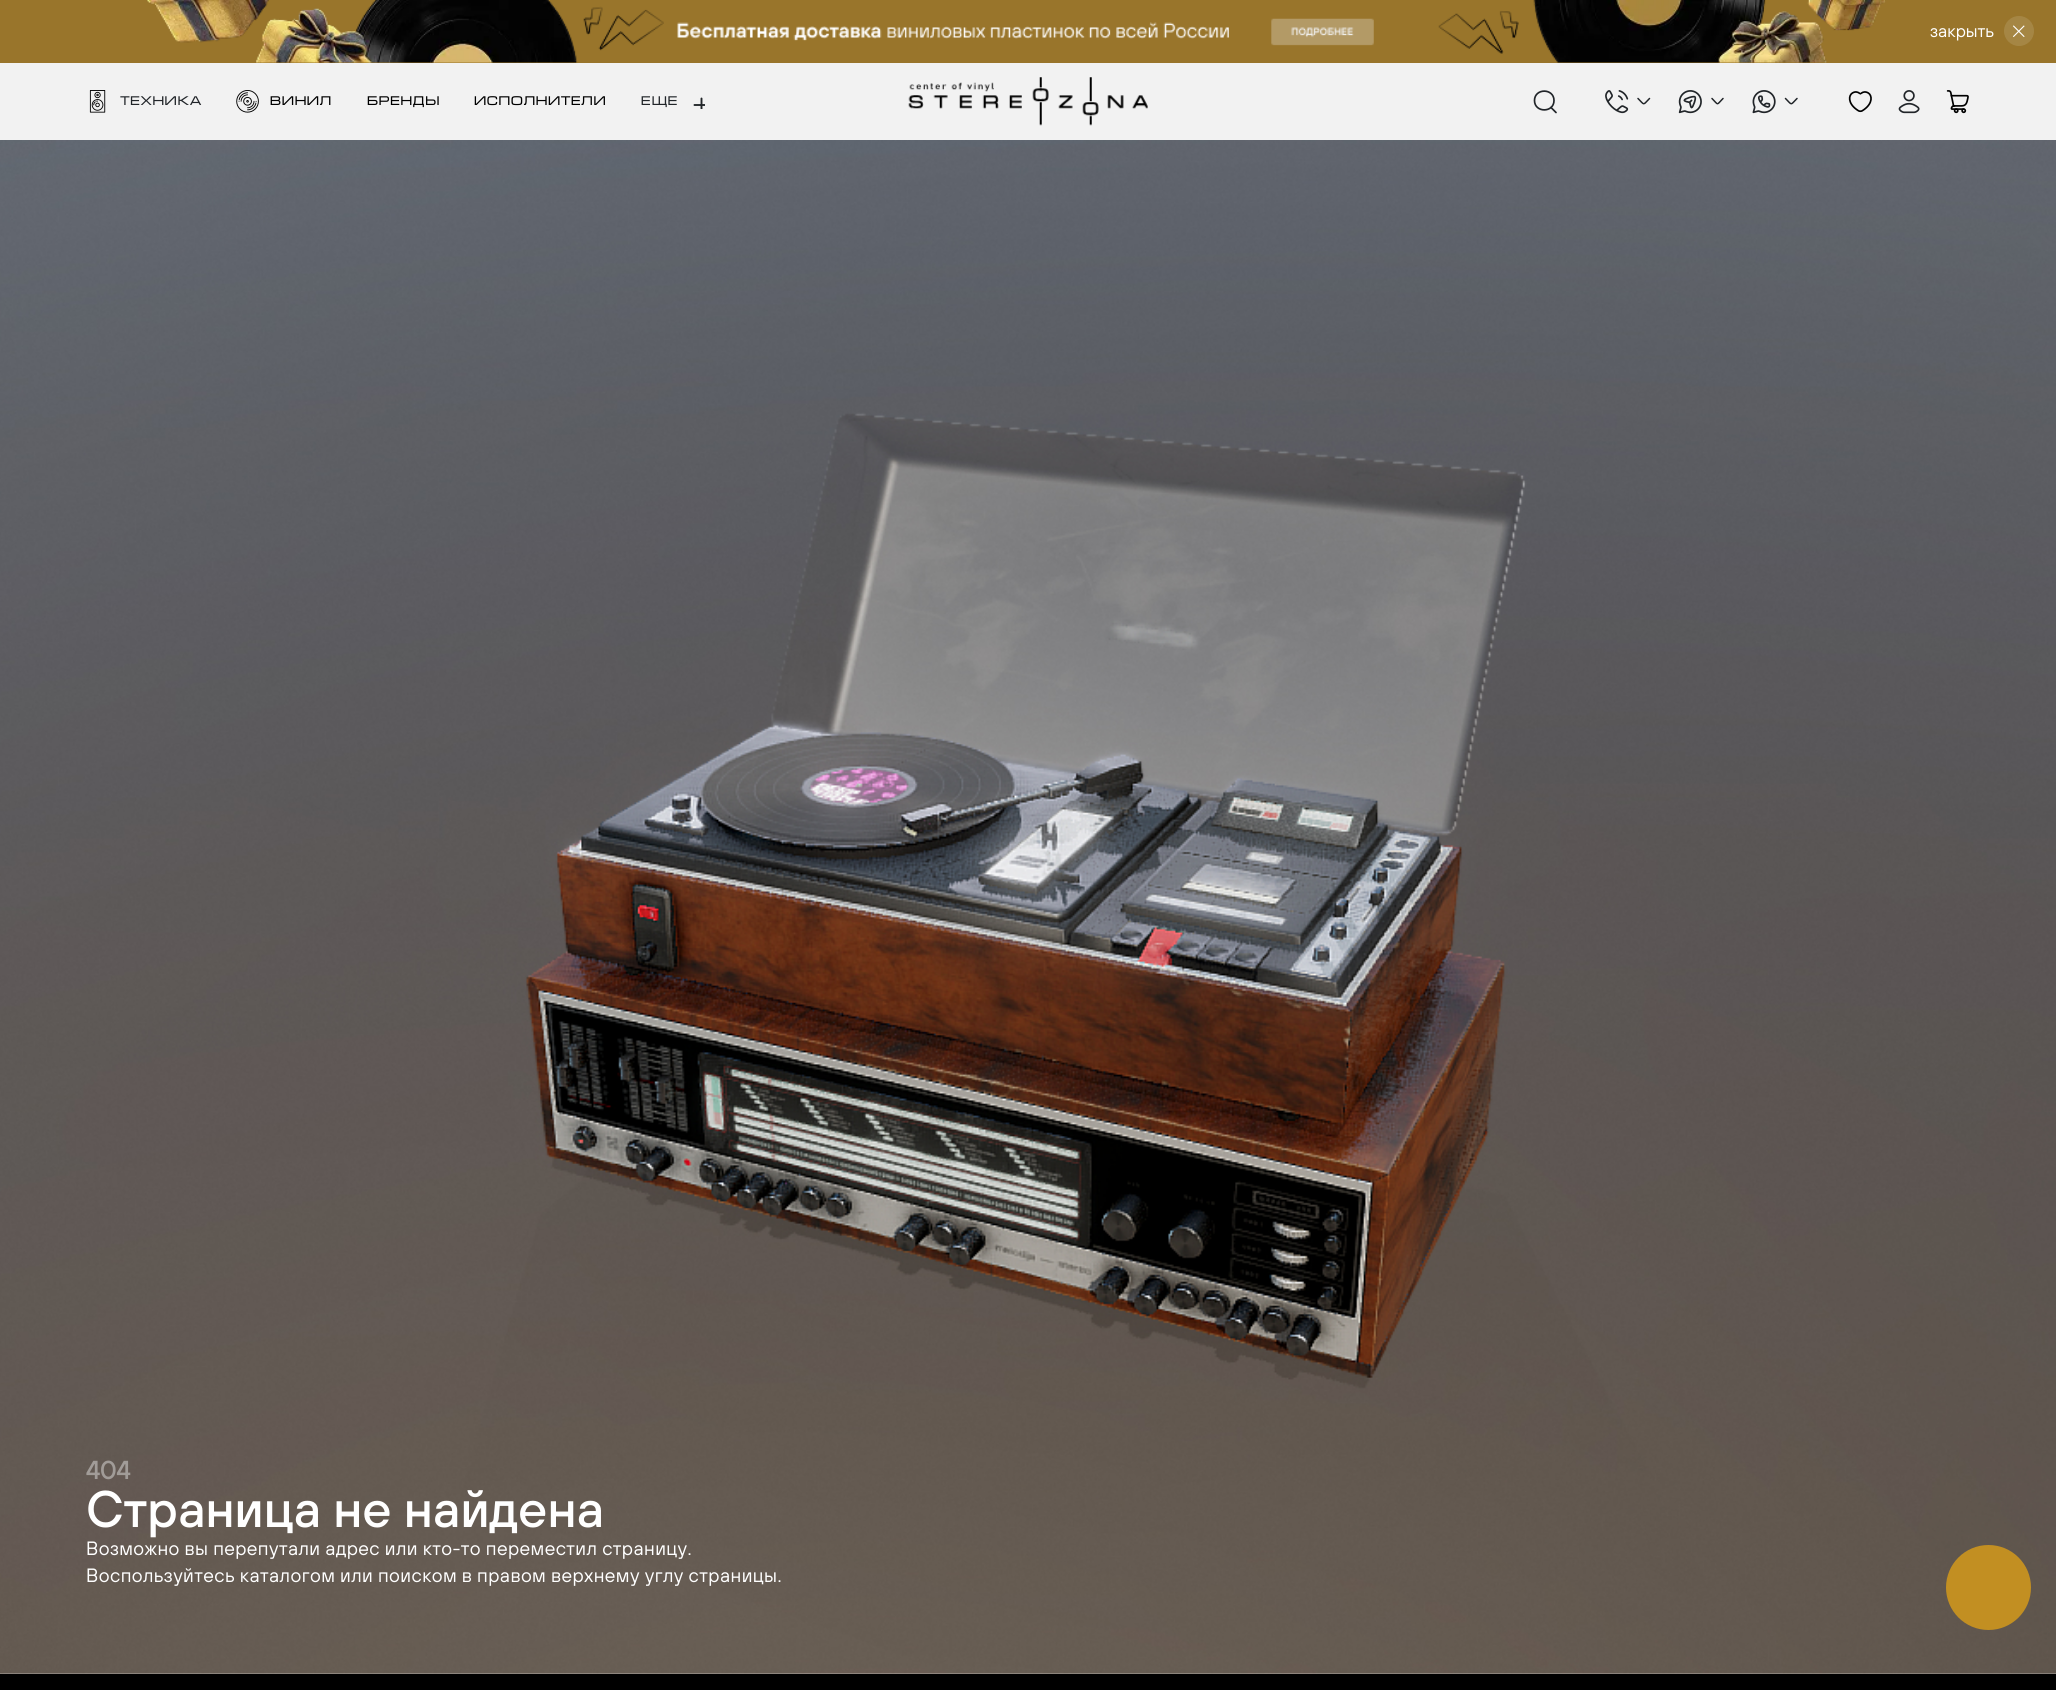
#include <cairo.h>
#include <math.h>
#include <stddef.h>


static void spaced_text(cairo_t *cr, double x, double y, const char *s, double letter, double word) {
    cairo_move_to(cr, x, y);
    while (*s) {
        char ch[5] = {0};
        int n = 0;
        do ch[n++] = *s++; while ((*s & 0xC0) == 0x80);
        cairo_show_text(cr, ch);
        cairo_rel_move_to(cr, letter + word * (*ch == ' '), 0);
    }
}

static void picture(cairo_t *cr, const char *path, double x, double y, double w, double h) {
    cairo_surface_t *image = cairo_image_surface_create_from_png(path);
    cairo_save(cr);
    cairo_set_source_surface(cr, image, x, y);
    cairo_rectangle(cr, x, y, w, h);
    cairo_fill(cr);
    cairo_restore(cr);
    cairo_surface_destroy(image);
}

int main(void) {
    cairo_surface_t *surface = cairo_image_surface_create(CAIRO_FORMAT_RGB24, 2056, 1690);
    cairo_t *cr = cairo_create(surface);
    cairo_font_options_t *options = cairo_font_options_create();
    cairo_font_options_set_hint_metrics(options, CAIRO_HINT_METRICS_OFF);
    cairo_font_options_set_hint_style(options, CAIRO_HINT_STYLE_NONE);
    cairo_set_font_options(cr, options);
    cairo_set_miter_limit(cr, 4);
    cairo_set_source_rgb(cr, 1, 1, 1);
    cairo_paint(cr);
    cairo_set_source_rgb(cr, 0.6, 0.459, 0.169);
    cairo_rectangle(cr, 0, 0, 2056, 63);
    cairo_fill(cr);
    picture(cr, "img1.png", 147, 0, 1739, 63);
    cairo_select_font_face(cr, "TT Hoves", CAIRO_FONT_SLANT_NORMAL, CAIRO_FONT_WEIGHT_NORMAL);
    cairo_set_font_size(cr, 17.5);
    cairo_set_source_rgb(cr, 1, 1, 1);
    cairo_move_to(cr, 1930, 37);
    cairo_show_text(cr, "закрыть");
    cairo_set_source_rgb(cr, 0.647, 0.525, 0.267);
    cairo_new_path(cr);
    cairo_arc(cr, 2019, 31, 15, 0, 2 * M_PI);
    cairo_fill(cr);
    picture(cr, "img2.png", 2013, 25, 12, 12);
    cairo_set_source_rgb(cr, 0.949, 0.949, 0.949);
    cairo_rectangle(cr, 0, 63, 2056, 77);
    cairo_fill(cr);
    picture(cr, "img3.png", 89, 90, 17, 23);
    cairo_select_font_face(cr, "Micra", CAIRO_FONT_SLANT_NORMAL, CAIRO_FONT_WEIGHT_NORMAL);
    cairo_set_font_size(cr, 12.8);
    cairo_set_source_rgb(cr, 0.129, 0.145, 0.161);
    cairo_move_to(cr, 120, 105);
    cairo_show_text(cr, "Техника");
    picture(cr, "img4.png", 236, 90, 23, 23);
    cairo_set_source_rgb(cr, 0, 0, 0);
    cairo_move_to(cr, 270, 105);
    cairo_show_text(cr, "ВИНИЛ");
    cairo_move_to(cr, 367, 105);
    cairo_show_text(cr, "БРЕНДЫ");
    cairo_move_to(cr, 474, 105);
    cairo_show_text(cr, "ИСПОЛНИТЕЛИ");
    cairo_set_source_rgb(cr, 0.129, 0.145, 0.161);
    cairo_move_to(cr, 641, 105);
    cairo_show_text(cr, "Еще");
    cairo_save(cr);
    cairo_rectangle(cr, 690, 94, 15, 15);
    cairo_clip(cr);
    cairo_new_path(cr);
    cairo_move_to(cr, 701.5, 98.5);
    cairo_line_to(cr, 701.5, 111.5);
    cairo_move_to(cr, 694.5, 105);
    cairo_line_to(cr, 708, 105);
    cairo_set_line_width(cr, 1.9);
    cairo_set_line_cap(cr, CAIRO_LINE_CAP_ROUND);
    cairo_set_line_join(cr, CAIRO_LINE_JOIN_ROUND);
    cairo_stroke(cr);
    cairo_restore(cr);
    picture(cr, "img5.png", 908, 77, 240, 49);
    cairo_new_path(cr);
    cairo_move_to(cr, 1551, 107.5);
    cairo_line_to(cr, 1556, 112.5);
    cairo_set_line_width(cr, 1.7);
    cairo_set_line_cap(cr, CAIRO_LINE_CAP_ROUND);
    cairo_set_line_join(cr, CAIRO_LINE_JOIN_ROUND);
    cairo_stroke(cr);
    cairo_new_path(cr);
    cairo_move_to(cr, 1554, 100.5);
    cairo_curve_to(cr, 1554, 88, 1534.5, 88, 1534.5, 100.5);
    cairo_curve_to(cr, 1534.5, 113, 1554, 113, 1554, 100.5);
    cairo_close_path(cr);
    cairo_set_line_cap(cr, CAIRO_LINE_CAP_BUTT);
    cairo_stroke(cr);
    picture(cr, "img6.png", 1605, 90, 24, 24);
    cairo_new_path(cr);
    cairo_move_to(cr, 1638, 98.5);
    cairo_curve_to(cr, 1645, 105.5, 1642.5, 105.5, 1649.5, 98.5);
    cairo_set_line_width(cr, 1.5);
    cairo_set_line_cap(cr, CAIRO_LINE_CAP_ROUND);
    cairo_stroke(cr);
    picture(cr, "img7.png", 1678, 90, 24, 24);
    cairo_new_path(cr);
    cairo_move_to(cr, 1712, 98.5);
    cairo_curve_to(cr, 1719, 105.5, 1716, 105.5, 1723, 98.5);
    cairo_stroke(cr);
    picture(cr, "img8.png", 1752, 90, 24, 24);
    cairo_new_path(cr);
    cairo_move_to(cr, 1785.5, 98.5);
    cairo_curve_to(cr, 1792.5, 105.5, 1790, 105.5, 1797, 98.5);
    cairo_stroke(cr);
    picture(cr, "img9.png", 1848, 91, 24, 22);
    picture(cr, "img10.png", 1898, 90, 22, 24);
    picture(cr, "img11.png", 1946, 90, 23, 24);
    picture(cr, "img12.png", 0, 140, 2056, 1534);
    cairo_select_font_face(cr, "TT Hoves Medium", CAIRO_FONT_SLANT_NORMAL, CAIRO_FONT_WEIGHT_NORMAL);
    cairo_set_font_size(cr, 26);
    cairo_set_source_rgb(cr, 0.631, 0.612, 0.596);
    spaced_text(cr, 86, 1479, "404", -0.5, 0);
    cairo_set_font_size(cr, 51.5);
    cairo_set_source_rgb(cr, 1, 1, 1);
    cairo_move_to(cr, 86, 1527);
    cairo_show_text(cr, "Страница не найдена");
    cairo_select_font_face(cr, "TT Hoves", CAIRO_FONT_SLANT_NORMAL, CAIRO_FONT_WEIGHT_NORMAL);
    cairo_set_font_size(cr, 19.3);
    spaced_text(cr, 86, 1555, "Возможно вы перепутали адрес или кто-то переместил страницу.", 0.4, 0);
    spaced_text(cr, 86, 1582, "Воспользуйтесь каталогом или поиском в правом верхнему углу страницы.", 0.4, 0);
    cairo_set_source_rgb(cr, 0.761, 0.561, 0.133);
    cairo_new_path(cr);
    cairo_arc(cr, 1988.5, 1587.5, 42.5, 0, 2 * M_PI);
    cairo_fill(cr);
    cairo_set_source_rgb(cr, 0, 0, 0);
    cairo_rectangle(cr, 0, 1674, 2056, 16);
    cairo_fill(cr);
    cairo_surface_write_to_png(surface, "page.png");
    cairo_font_options_destroy(options);
    cairo_destroy(cr);
    cairo_surface_destroy(surface);
    return 0;
}
